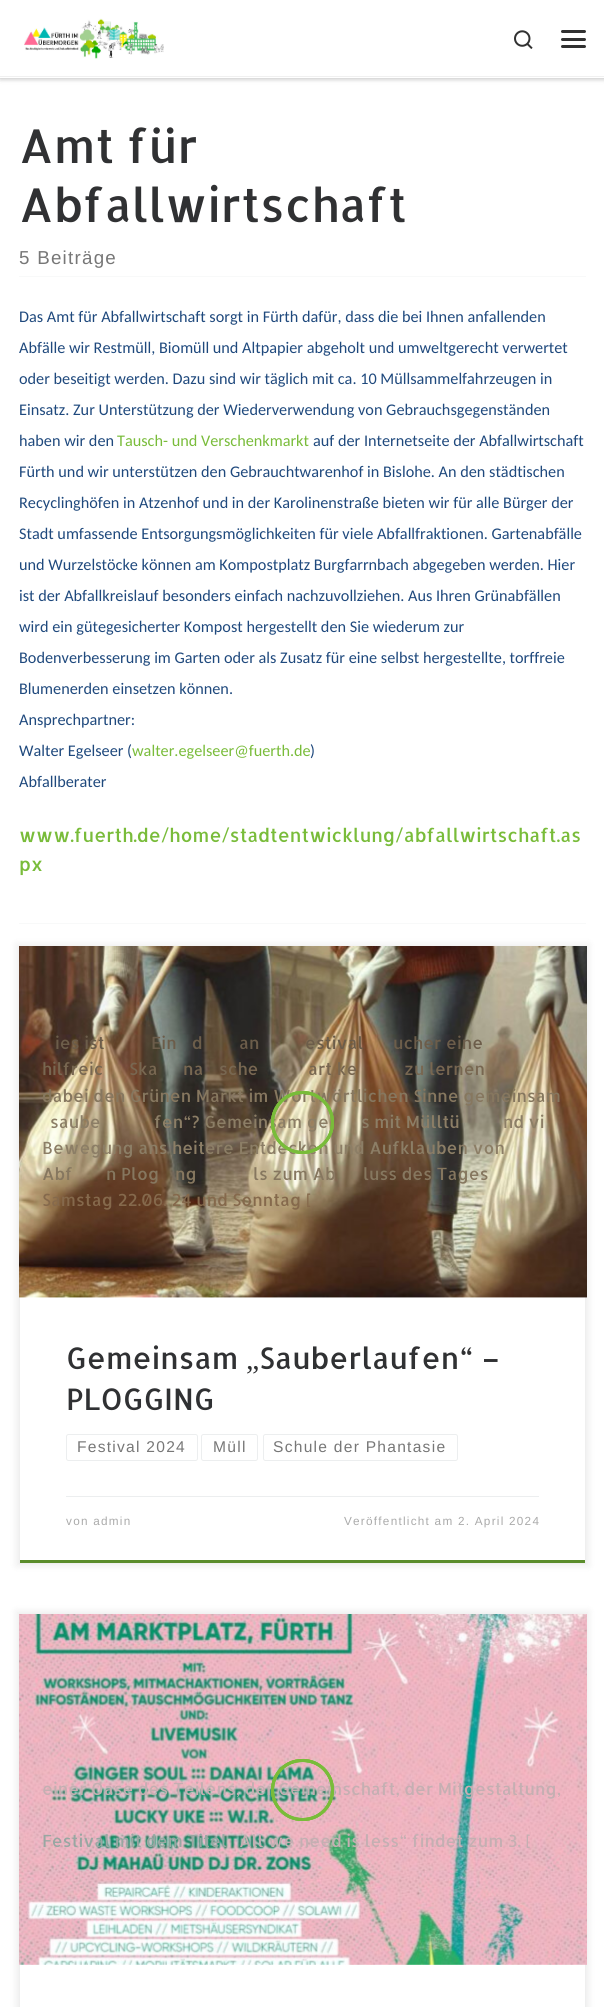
#include <cairo.h>
#include <math.h>
#include <stddef.h>


static void spaced_text(cairo_t *cr, double x, double y, const char *s, double letter, double word) {
    cairo_move_to(cr, x, y);
    while (*s) {
        char ch[5] = {0};
        int n = 0;
        do ch[n++] = *s++; while ((*s & 0xC0) == 0x80);
        cairo_show_text(cr, ch);
        cairo_rel_move_to(cr, letter + word * (*ch == ' '), 0);
    }
}

static void round_rect(cairo_t *cr, double x, double y, double w, double h, double r) {
    cairo_new_sub_path(cr);
    cairo_arc(cr, x + w - r, y + h - r, r, 0, M_PI / 2);
    cairo_arc(cr, x + r, y + h - r, r, M_PI / 2, M_PI);
    cairo_arc(cr, x + r, y + r, r, M_PI, 1.5 * M_PI);
    cairo_arc(cr, x + w - r, y + r, r, 1.5 * M_PI, 2 * M_PI);
    cairo_close_path(cr);
}

static void shadow(cairo_t *cr, double x, double y, double w, double h, double r, double blur, double alpha) {
    cairo_push_group_with_content(cr, CAIRO_CONTENT_ALPHA);
    cairo_set_operator(cr, CAIRO_OPERATOR_SOURCE);
    for (int i = 15; i >= -15 && fmin(w, h) + blur * i / 3 > 0; i -= 2) {
        double e = blur * i / 6;
        cairo_set_source_rgba(cr, 0, 0, 0, alpha * erfc((i - 1) / 8.5) / 2);
        round_rect(cr, x - e, y - e, w + 2 * e, h + 2 * e, fmax(0, fmin(r + e + blur * .6, fmin(w, h) / 2 + e)));
        cairo_fill(cr);
    }
    cairo_pattern_t *soft = cairo_pop_group(cr);
    cairo_mask(cr, soft);
    cairo_pattern_destroy(soft);
}

static void picture(cairo_t *cr, const char *path, double x, double y, double w, double h) {
    cairo_surface_t *image = cairo_image_surface_create_from_png(path);
    cairo_save(cr);
    cairo_set_source_surface(cr, image, x, y);
    cairo_rectangle(cr, x, y, w, h);
    cairo_fill(cr);
    cairo_restore(cr);
    cairo_surface_destroy(image);
}

int main(void) {
    cairo_surface_t *surface = cairo_image_surface_create(CAIRO_FORMAT_RGB24, 604, 2007);
    cairo_t *cr = cairo_create(surface);
    cairo_font_options_t *options = cairo_font_options_create();
    cairo_font_options_set_hint_metrics(options, CAIRO_HINT_METRICS_OFF);
    cairo_font_options_set_hint_style(options, CAIRO_HINT_STYLE_NONE);
    cairo_set_font_options(cr, options);
    cairo_set_miter_limit(cr, 4);
    cairo_set_source_rgb(cr, 1, 1, 1);
    cairo_paint(cr);
    cairo_set_source_rgb(cr, 0.4, 0.4, 0.4);
    shadow(cr, 0, 3, 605, 78, 0, 1, 0.08);
    cairo_set_source_rgb(cr, 0.937, 0.937, 0.937);
    cairo_rectangle(cr, 0, 78, 604, 1);
    cairo_fill(cr);
    cairo_set_source_rgb(cr, 0, 0, 0);
    shadow(cr, 0, 0, 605, 78, 0, 3, 0.2);
    cairo_set_source_rgb(cr, 1, 1, 1);
    cairo_rectangle(cr, 0, 0, 604, 78);
    cairo_fill(cr);
    picture(cr, "img1.png", 24, 18, 140, 41);
    picture(cr, "img2.png", 514, 30, 19, 19);
    cairo_set_source_rgb(cr, 0.192, 0.192, 0.192);
    round_rect(cr, 561, 30, 25, 3, 1.5);
    cairo_fill(cr);
    round_rect(cr, 561, 38, 25, 3, 1.5);
    cairo_fill(cr);
    round_rect(cr, 561, 45, 25, 3, 1.5);
    cairo_fill(cr);
    cairo_set_source_rgb(cr, 0.941, 0.941, 0.941);
    cairo_rectangle(cr, 0, 76, 604, 1);
    cairo_fill(cr);
    cairo_select_font_face(cr, "Allerta", CAIRO_FONT_SLANT_NORMAL, CAIRO_FONT_WEIGHT_NORMAL);
    cairo_set_font_size(cr, 46.75);
    cairo_set_source_rgb(cr, 0.188, 0.192, 0.2);
    cairo_move_to(cr, 19, 163);
    cairo_show_text(cr, "Amt für");
    cairo_move_to(cr, 19, 222);
    cairo_show_text(cr, "Abfallwirtschaft");
    cairo_select_font_face(cr, "Liberation Sans", CAIRO_FONT_SLANT_NORMAL, CAIRO_FONT_WEIGHT_NORMAL);
    cairo_set_font_size(cr, 18.75);
    cairo_set_source_rgb(cr, 0.467, 0.467, 0.467);
    spaced_text(cr, 19, 264, "5 Beiträge", 1.25, 0);
    cairo_set_source_rgb(cr, 0.969, 0.973, 0.976);
    cairo_rectangle(cr, 19, 276, 567, 1);
    cairo_fill(cr);
    cairo_rectangle(cr, 19, 923, 567, 1);
    cairo_fill(cr);
    cairo_select_font_face(cr, "Carlito", CAIRO_FONT_SLANT_NORMAL, CAIRO_FONT_WEIGHT_NORMAL);
    cairo_set_font_size(cr, 16.25);
    cairo_set_source_rgb(cr, 0.122, 0.286, 0.49);
    cairo_move_to(cr, 19, 322);
    cairo_show_text(cr, "Das Amt für Abfallwirtschaft sorgt in Fürth dafür, dass die bei Ihnen anfallenden");
    cairo_move_to(cr, 19, 353);
    cairo_show_text(cr, "Abfälle wir Restmüll, Biomüll und Altpapier abgeholt und umweltgerecht verwertet");
    cairo_move_to(cr, 19, 384);
    cairo_show_text(cr, "oder beseitigt werden. Dazu sind wir täglich mit ca. 10 Müllsammelfahrzeugen in");
    cairo_move_to(cr, 19, 415);
    cairo_show_text(cr, "Einsatz. Zur Unterstützung der Wiederverwendung von Gebrauchsgegenständen");
    cairo_move_to(cr, 19, 446);
    cairo_show_text(cr, "haben wir den");
    cairo_set_source_rgb(cr, 0.475, 0.737, 0.227);
    cairo_move_to(cr, 117, 446);
    cairo_show_text(cr, "Tausch- und Verschenkmarkt");
    cairo_set_source_rgb(cr, 0.122, 0.286, 0.49);
    cairo_move_to(cr, 313, 446);
    cairo_show_text(cr, "auf der Internetseite der Abfallwirtschaft");
    cairo_move_to(cr, 19, 477);
    cairo_show_text(cr, "Fürth und wir unterstützen den Gebrauchtwarenhof in Bislohe. An den städtischen");
    cairo_move_to(cr, 19, 508);
    cairo_show_text(cr, "Recyclinghöfen in Atzenhof und in der Karolinenstraße bieten wir für alle Bürger der");
    cairo_move_to(cr, 19, 539);
    cairo_show_text(cr, "Stadt umfassende Entsorgungsmöglichkeiten für viele Abfallfraktionen. Gartenabfälle");
    cairo_move_to(cr, 19, 570);
    cairo_show_text(cr, "und Wurzelstöcke können am Kompostplatz Burgfarrnbach abgegeben werden. Hier");
    cairo_move_to(cr, 19, 601);
    cairo_show_text(cr, "ist der Abfallkreislauf besonders einfach nachzuvollziehen. Aus Ihren Grünabfällen");
    cairo_move_to(cr, 19, 632);
    cairo_show_text(cr, "wird ein gütegesicherter Kompost hergestellt den Sie wiederum zur");
    cairo_move_to(cr, 19, 663);
    cairo_show_text(cr, "Bodenverbesserung im Garten oder als Zusatz für eine selbst hergestellte, torffreie");
    cairo_move_to(cr, 19, 694);
    cairo_show_text(cr, "Blumenerden einsetzen können.");
    cairo_move_to(cr, 19, 725);
    cairo_show_text(cr, "Ansprechpartner:");
    cairo_move_to(cr, 19, 756);
    cairo_show_text(cr, "Walter Egelseer (");
    cairo_set_source_rgb(cr, 0.475, 0.737, 0.227);
    cairo_move_to(cr, 132, 756);
    cairo_show_text(cr, "walter.egelseer@fuerth.de");
    cairo_set_source_rgb(cr, 0.122, 0.286, 0.49);
    cairo_move_to(cr, 310, 756);
    cairo_show_text(cr, ")");
    cairo_move_to(cr, 19, 787);
    cairo_show_text(cr, "Abfallberater");
    cairo_select_font_face(cr, "Allerta", CAIRO_FONT_SLANT_NORMAL, CAIRO_FONT_WEIGHT_NORMAL);
    cairo_set_font_size(cr, 18.75);
    cairo_set_source_rgb(cr, 0.475, 0.737, 0.227);
    cairo_move_to(cr, 19, 842);
    cairo_show_text(cr, "www.fuerth.de/home/stadtentwicklung/abfallwirtschaft.as");
    cairo_move_to(cr, 19, 871);
    cairo_show_text(cr, "px");
    cairo_set_source_rgb(cr, 0, 0, 0);
    shadow(cr, 16, 944, 573, 622, 0, 4, 0.07);
    cairo_set_source_rgb(cr, 1, 1, 1);
    cairo_rectangle(cr, 20, 1297, 565, 263);
    cairo_fill(cr);
    cairo_set_source_rgb(cr, 0.357, 0.553, 0.173);
    cairo_rectangle(cr, 19, 1560, 567, 3);
    cairo_fill(cr);
    round_rect(cr, 66.5, 1434.5, 131, 26, 2);
    cairo_set_source_rgb(cr, 0.925, 0.933, 0.937);
    cairo_set_line_width(cr, 1);
    cairo_stroke(cr);
    round_rect(cr, 201.5, 1434.5, 56, 26, 2);
    cairo_stroke(cr);
    round_rect(cr, 263.5, 1434.5, 194, 26, 2);
    cairo_stroke(cr);
    cairo_rectangle(cr, 19.5, 946.5, 566, 617);
    cairo_set_source_rgb(cr, 0.937, 0.937, 0.937);
    cairo_stroke(cr);
    picture(cr, "img3.png", 19, 946, 568, 352);
    cairo_set_font_size(cr, 16.9);
    cairo_set_source_rgb(cr, 0.424, 0.365, 0.29);
    cairo_move_to(cr, 55, 1049);
    cairo_show_text(cr, "ies ist");
    cairo_move_to(cr, 151, 1049);
    cairo_show_text(cr, "Ein");
    cairo_move_to(cr, 192, 1049);
    cairo_show_text(cr, "d");
    cairo_move_to(cr, 239, 1049);
    cairo_show_text(cr, "an");
    cairo_move_to(cr, 305, 1049);
    cairo_show_text(cr, "estival");
    cairo_move_to(cr, 393, 1049);
    cairo_show_text(cr, "ucher eine");
    cairo_set_source_rgb(cr, 0.471, 0.404, 0.318);
    cairo_move_to(cr, 42, 1075);
    cairo_show_text(cr, "hilfreic");
    cairo_move_to(cr, 129, 1075);
    cairo_show_text(cr, "Ska");
    cairo_move_to(cr, 183, 1075);
    cairo_show_text(cr, "na");
    cairo_move_to(cr, 219, 1075);
    cairo_show_text(cr, "sche");
    cairo_move_to(cr, 308, 1075);
    cairo_show_text(cr, "art ke");
    cairo_move_to(cr, 404, 1075);
    cairo_show_text(cr, "zu lernen");
    cairo_set_source_rgb(cr, 0.525, 0.467, 0.373);
    cairo_move_to(cr, 42, 1102);
    cairo_show_text(cr, "dabei den Grünen Markt im Wortwörtlichen Sinne gemeinsam");
    cairo_set_source_rgb(cr, 0.549, 0.494, 0.4);
    cairo_move_to(cr, 50, 1128);
    cairo_show_text(cr, "saube");
    cairo_move_to(cr, 154, 1128);
    cairo_show_text(cr, "fen“? Gemeinsam ge");
    cairo_move_to(cr, 361, 1128);
    cairo_show_text(cr, "s mit Mülltü");
    cairo_move_to(cr, 503, 1128);
    cairo_show_text(cr, "nd vi");
    cairo_move_to(cr, 42, 1154);
    cairo_show_text(cr, "Bewegung ans heitere Entdecken und Aufklauben von");
    cairo_set_source_rgb(cr, 0.525, 0.467, 0.373);
    cairo_move_to(cr, 42, 1180);
    cairo_show_text(cr, "Abf");
    cairo_move_to(cr, 106, 1180);
    cairo_show_text(cr, "n Plog");
    cairo_move_to(cr, 175, 1180);
    cairo_show_text(cr, "ng");
    cairo_move_to(cr, 253, 1180);
    cairo_show_text(cr, "ls zum Ab");
    cairo_move_to(cr, 363, 1180);
    cairo_show_text(cr, "luss des Tages");
    cairo_set_source_rgb(cr, 0.522, 0.412, 0.298);
    cairo_move_to(cr, 42, 1206);
    cairo_show_text(cr, "Samstag 22.06. 24 und Sonntag [");
    cairo_new_path(cr);
    cairo_arc(cr, 302.5, 1122.5, 30, 0, 2 * M_PI);
    cairo_set_source_rgb(cr, 0.475, 0.737, 0.227);
    cairo_set_line_width(cr, 3);
    cairo_stroke(cr);
    cairo_arc(cr, 302.5, 1122.5, 30, 0, 2 * M_PI);
    cairo_stroke(cr);
    cairo_arc(cr, 302.5, 1122.5, 30, 0, 2 * M_PI);
    cairo_stroke(cr);
    cairo_set_font_size(cr, 29.75);
    cairo_set_source_rgb(cr, 0.188, 0.192, 0.2);
    cairo_move_to(cr, 66, 1369);
    cairo_show_text(cr, "Gemeinsam");
    cairo_select_font_face(cr, "Liberation Serif", CAIRO_FONT_SLANT_NORMAL, CAIRO_FONT_WEIGHT_NORMAL);
    cairo_move_to(cr, 246, 1369);
    cairo_show_text(cr, "„");
    cairo_select_font_face(cr, "Allerta", CAIRO_FONT_SLANT_NORMAL, CAIRO_FONT_WEIGHT_NORMAL);
    cairo_move_to(cr, 259, 1369);
    cairo_show_text(cr, "Sauberlaufen“ –");
    cairo_move_to(cr, 66, 1410);
    cairo_show_text(cr, "PLOGGING");
    cairo_select_font_face(cr, "Liberation Sans", CAIRO_FONT_SLANT_NORMAL, CAIRO_FONT_WEIGHT_NORMAL);
    cairo_set_font_size(cr, 15.6);
    cairo_set_source_rgb(cr, 0.467, 0.467, 0.467);
    spaced_text(cr, 77, 1452, "Festival 2024", 1.25, 0);
    spaced_text(cr, 213, 1452, "Müll", 1.25, 0);
    spaced_text(cr, 273, 1452, "Schule der Phantasie", 1.25, 0);
    cairo_set_source_rgb(cr, 0.925, 0.933, 0.937);
    cairo_rectangle(cr, 66, 1496, 473, 1);
    cairo_fill(cr);
    cairo_set_font_size(cr, 11.75);
    cairo_set_source_rgb(cr, 0.667, 0.667, 0.667);
    spaced_text(cr, 66, 1525, "von admin", 1.25, 0);
    spaced_text(cr, 344, 1525, "Veröffentlicht am 2. April 2024", 1.25, 0);
    cairo_save(cr);
    cairo_set_fill_rule(cr, CAIRO_FILL_RULE_EVEN_ODD);
    cairo_new_path(cr);
    cairo_move_to(cr, 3, 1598);
    cairo_line_to(cr, 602, 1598);
    cairo_line_to(cr, 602, 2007);
    cairo_line_to(cr, 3, 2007);
    cairo_close_path(cr);
    cairo_move_to(cr, 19, 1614);
    cairo_line_to(cr, 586, 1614);
    cairo_line_to(cr, 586, 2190);
    cairo_line_to(cr, 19, 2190);
    cairo_close_path(cr);
    cairo_clip(cr);
    cairo_set_source_rgb(cr, 0, 0, 0);
    shadow(cr, 16, 1611, 573, 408, 0, 4, 0.07);
    cairo_restore(cr);
    cairo_rectangle(cr, 19.5, 1614.5, 566, 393);
    cairo_set_source_rgb(cr, 0.937, 0.937, 0.937);
    cairo_set_line_width(cr, 1);
    cairo_stroke(cr);
    picture(cr, "img4.png", 19, 1614, 568, 351);
    cairo_select_font_face(cr, "Allerta", CAIRO_FONT_SLANT_NORMAL, CAIRO_FONT_WEIGHT_NORMAL);
    cairo_set_font_size(cr, 16.9);
    cairo_set_source_rgb(cr, 0.769, 0.686, 0.698);
    cairo_move_to(cr, 42, 1795);
    cairo_show_text(cr, "einer Oase des Teilens, der Gemeinschaft, der Mitgestaltung,");
    round_rect(cr, 272.5, 1760.5, 60, 59, 29.5);
    cairo_set_source_rgb(cr, 0.475, 0.737, 0.227);
    cairo_set_line_width(cr, 3);
    cairo_stroke(cr);
    round_rect(cr, 272.5, 1760.5, 60, 59, 29.5);
    cairo_stroke(cr);
    round_rect(cr, 272.5, 1760.5, 60, 59, 29.5);
    cairo_stroke(cr);
    cairo_set_source_rgb(cr, 0.596, 0.655, 0.635);
    cairo_move_to(cr, 42, 1847);
    cairo_show_text(cr, "Festival mit dem Titel");
    cairo_set_source_rgb(cr, 0.769, 0.686, 0.698);
    cairo_move_to(cr, 239, 1847);
    cairo_show_text(cr, "All we need is less“ findet zum 3. [");
    cairo_surface_write_to_png(surface, "page.png");
    cairo_font_options_destroy(options);
    cairo_destroy(cr);
    cairo_surface_destroy(surface);
    return 0;
}
